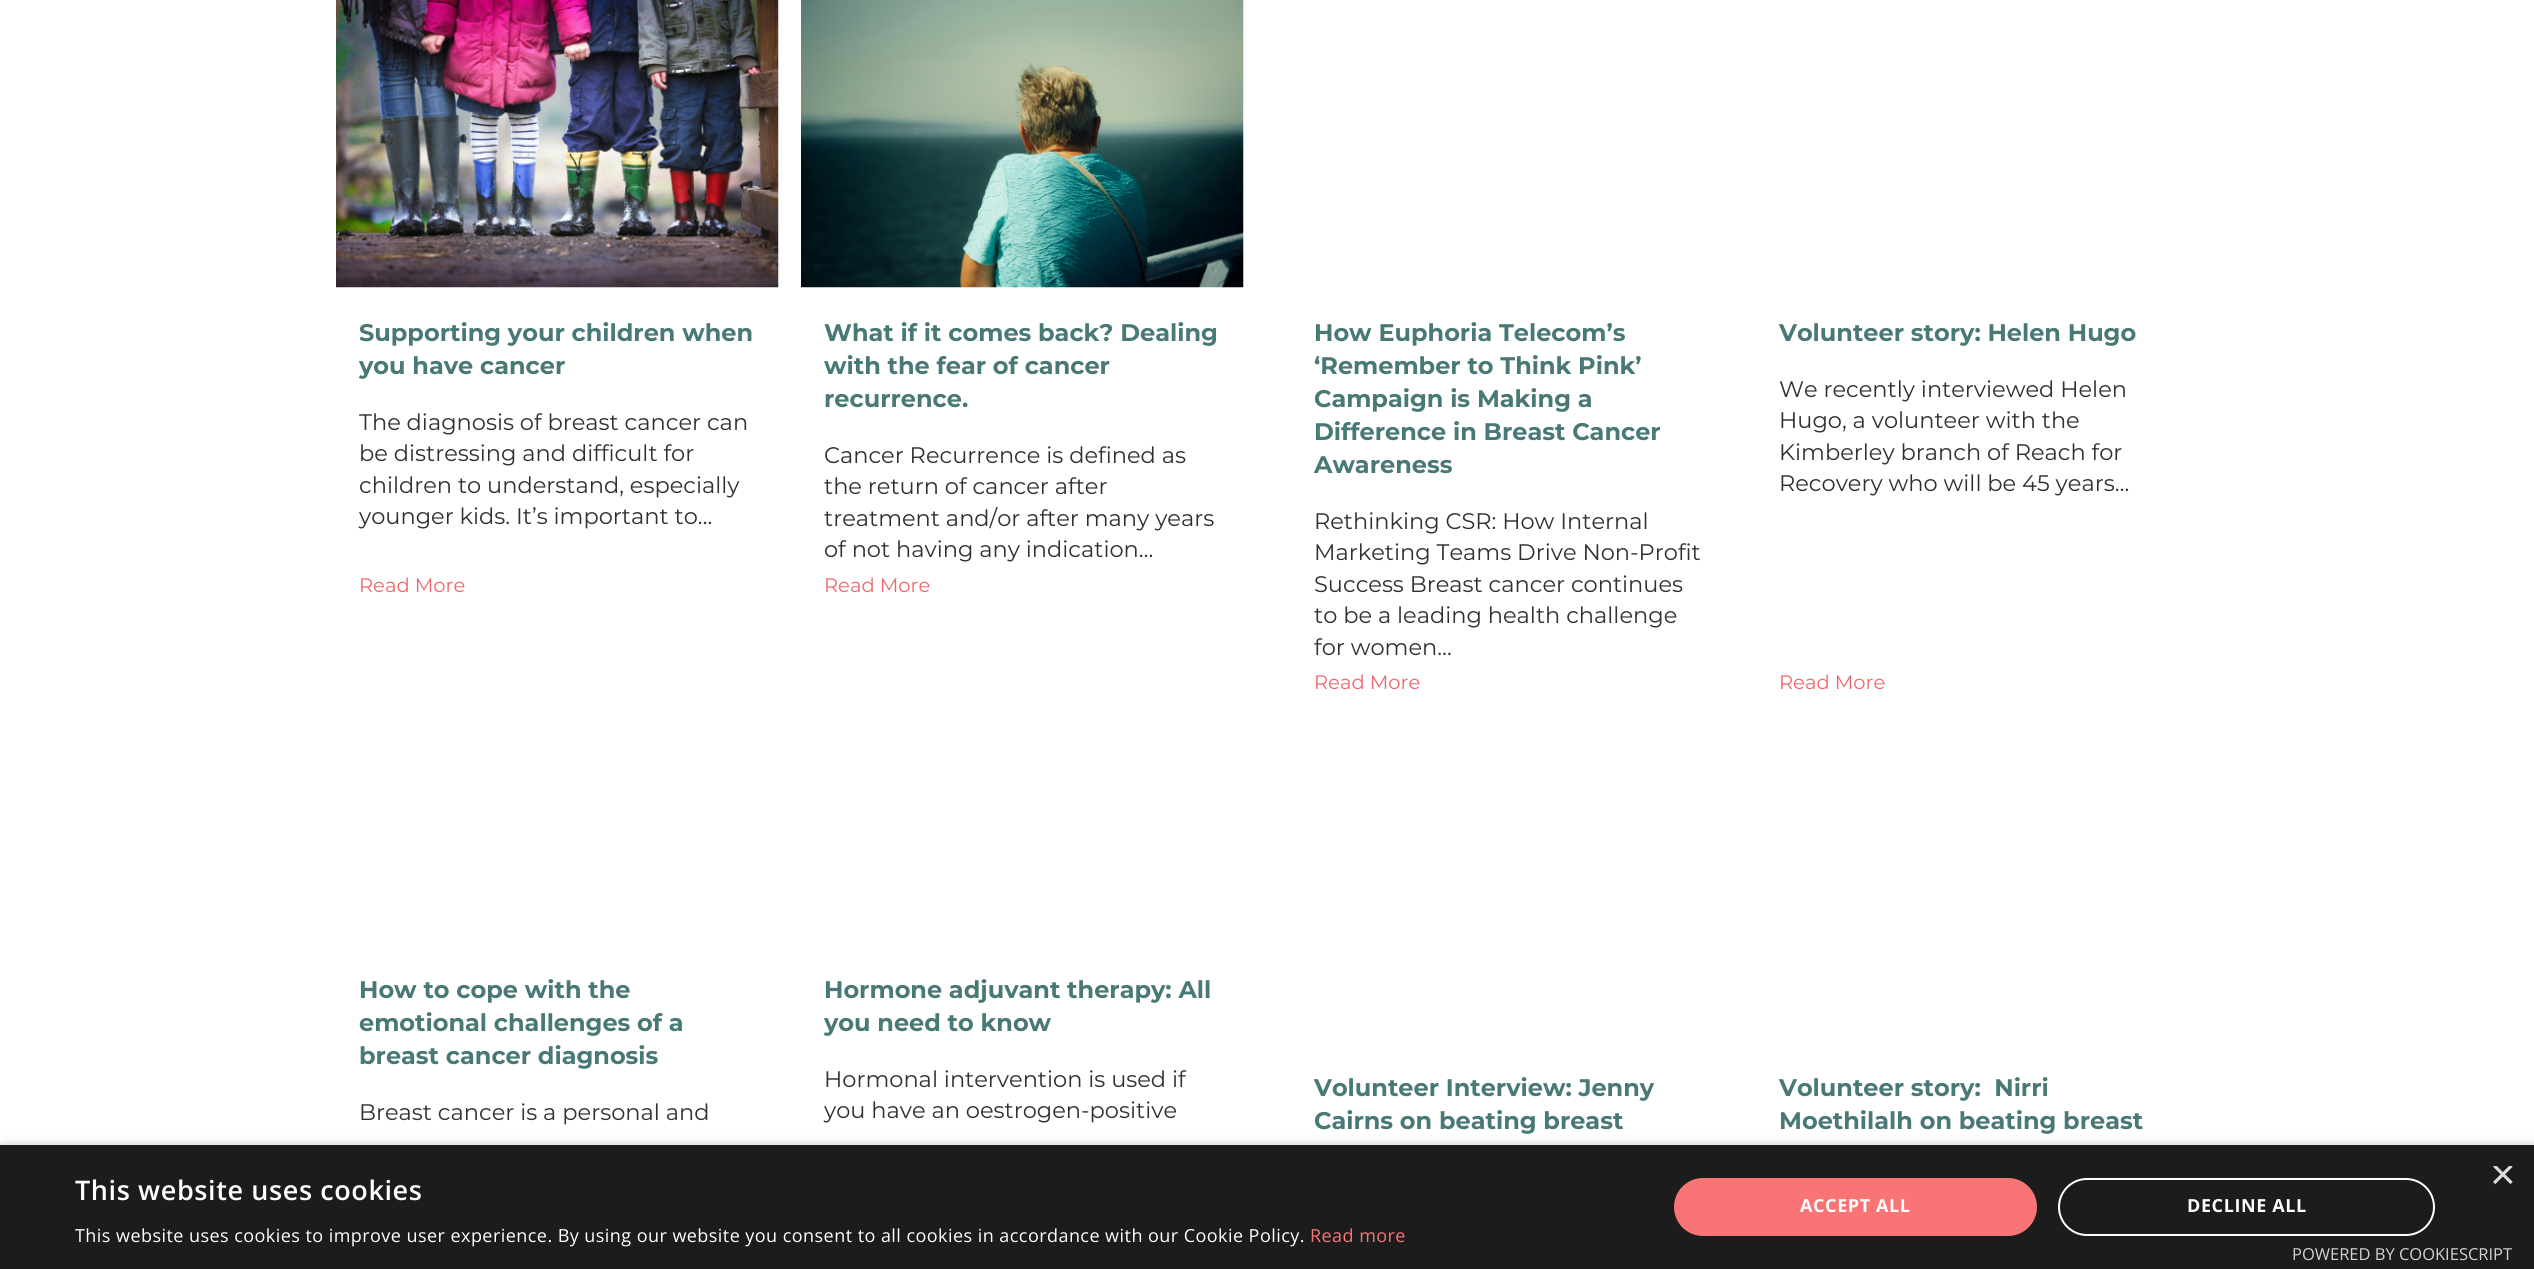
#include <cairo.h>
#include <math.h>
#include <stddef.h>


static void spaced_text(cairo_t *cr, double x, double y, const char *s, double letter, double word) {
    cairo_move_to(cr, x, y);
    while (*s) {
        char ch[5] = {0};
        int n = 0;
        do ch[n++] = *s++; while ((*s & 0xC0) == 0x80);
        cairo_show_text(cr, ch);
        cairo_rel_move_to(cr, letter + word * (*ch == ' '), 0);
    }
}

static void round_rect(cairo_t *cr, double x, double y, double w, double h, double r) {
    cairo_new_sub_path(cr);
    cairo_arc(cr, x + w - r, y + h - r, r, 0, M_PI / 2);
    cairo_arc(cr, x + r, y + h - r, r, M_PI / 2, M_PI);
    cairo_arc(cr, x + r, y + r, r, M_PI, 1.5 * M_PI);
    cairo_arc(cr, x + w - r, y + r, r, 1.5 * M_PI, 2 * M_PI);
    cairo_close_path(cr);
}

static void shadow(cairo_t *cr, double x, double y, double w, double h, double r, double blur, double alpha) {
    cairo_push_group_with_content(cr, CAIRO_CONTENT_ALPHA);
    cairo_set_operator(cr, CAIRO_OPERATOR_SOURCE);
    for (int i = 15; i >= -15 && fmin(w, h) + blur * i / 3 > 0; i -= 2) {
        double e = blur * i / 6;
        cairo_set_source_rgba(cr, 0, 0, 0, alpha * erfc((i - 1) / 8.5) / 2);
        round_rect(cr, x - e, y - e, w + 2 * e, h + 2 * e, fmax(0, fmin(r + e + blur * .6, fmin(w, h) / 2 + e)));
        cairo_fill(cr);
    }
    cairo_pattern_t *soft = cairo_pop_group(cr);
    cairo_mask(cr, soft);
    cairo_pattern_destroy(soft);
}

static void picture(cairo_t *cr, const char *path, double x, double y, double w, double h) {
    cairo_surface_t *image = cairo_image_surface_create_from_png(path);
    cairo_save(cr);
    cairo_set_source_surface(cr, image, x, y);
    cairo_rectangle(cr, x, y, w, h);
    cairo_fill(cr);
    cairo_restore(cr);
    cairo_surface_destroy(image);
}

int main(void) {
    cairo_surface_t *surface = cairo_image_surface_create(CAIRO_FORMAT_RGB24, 2534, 1269);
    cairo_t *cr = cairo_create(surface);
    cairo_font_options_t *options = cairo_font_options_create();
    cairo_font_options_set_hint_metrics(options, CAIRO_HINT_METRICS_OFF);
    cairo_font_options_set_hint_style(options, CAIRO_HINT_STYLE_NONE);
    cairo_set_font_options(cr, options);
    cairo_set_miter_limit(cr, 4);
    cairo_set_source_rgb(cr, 1, 1, 1);
    cairo_paint(cr);
    picture(cr, "img1.png", 336, 0, 443, 288);
    cairo_select_font_face(cr, "Montserrat", CAIRO_FONT_SLANT_NORMAL, CAIRO_FONT_WEIGHT_BOLD);
    cairo_set_font_size(cr, 24);
    cairo_set_source_rgb(cr, 0.286, 0.475, 0.463);
    cairo_move_to(cr, 359, 341);
    cairo_show_text(cr, "Supporting your children when");
    cairo_move_to(cr, 359, 374);
    cairo_show_text(cr, "you have cancer");
    cairo_select_font_face(cr, "Montserrat", CAIRO_FONT_SLANT_NORMAL, CAIRO_FONT_WEIGHT_NORMAL);
    cairo_set_font_size(cr, 22.5);
    cairo_set_source_rgb(cr, 0.192, 0.188, 0.18);
    cairo_move_to(cr, 359, 430);
    cairo_show_text(cr, "The diagnosis of breast cancer can");
    cairo_move_to(cr, 359, 461);
    cairo_show_text(cr, "be distressing and difficult for");
    cairo_move_to(cr, 359, 493);
    cairo_show_text(cr, "children to understand, especially");
    cairo_move_to(cr, 359, 524);
    cairo_show_text(cr, "younger kids. It’s important to…");
    cairo_set_font_size(cr, 19.5);
    cairo_set_source_rgb(cr, 0.933, 0.4, 0.427);
    cairo_move_to(cr, 359, 592);
    cairo_show_text(cr, "Read More");
    picture(cr, "img2.png", 801, 0, 443, 288);
    cairo_select_font_face(cr, "Montserrat", CAIRO_FONT_SLANT_NORMAL, CAIRO_FONT_WEIGHT_BOLD);
    cairo_set_font_size(cr, 24);
    cairo_set_source_rgb(cr, 0.286, 0.475, 0.463);
    cairo_move_to(cr, 824, 341);
    cairo_show_text(cr, "What if it comes back? Dealing");
    cairo_move_to(cr, 824, 374);
    cairo_show_text(cr, "with the fear of cancer");
    cairo_move_to(cr, 824, 407);
    cairo_show_text(cr, "recurrence.");
    cairo_select_font_face(cr, "Montserrat", CAIRO_FONT_SLANT_NORMAL, CAIRO_FONT_WEIGHT_NORMAL);
    cairo_set_font_size(cr, 22.5);
    cairo_set_source_rgb(cr, 0.192, 0.188, 0.18);
    cairo_move_to(cr, 824, 463);
    cairo_show_text(cr, "Cancer Recurrence is defined as");
    cairo_move_to(cr, 824, 494);
    cairo_show_text(cr, "the return of cancer after");
    cairo_move_to(cr, 824, 526);
    cairo_show_text(cr, "treatment and/or after many years");
    cairo_move_to(cr, 824, 557);
    cairo_show_text(cr, "of not having any indication…");
    cairo_set_font_size(cr, 19.5);
    cairo_set_source_rgb(cr, 0.933, 0.4, 0.427);
    cairo_move_to(cr, 824, 592);
    cairo_show_text(cr, "Read More");
    cairo_select_font_face(cr, "Montserrat", CAIRO_FONT_SLANT_NORMAL, CAIRO_FONT_WEIGHT_BOLD);
    cairo_set_font_size(cr, 24);
    cairo_set_source_rgb(cr, 0.286, 0.475, 0.463);
    cairo_move_to(cr, 359, 998);
    cairo_show_text(cr, "How to cope with the");
    cairo_move_to(cr, 359, 1031);
    cairo_show_text(cr, "emotional challenges of a");
    cairo_move_to(cr, 359, 1064);
    cairo_show_text(cr, "breast cancer diagnosis");
    cairo_select_font_face(cr, "Montserrat", CAIRO_FONT_SLANT_NORMAL, CAIRO_FONT_WEIGHT_NORMAL);
    cairo_set_font_size(cr, 22.5);
    cairo_set_source_rgb(cr, 0.192, 0.188, 0.18);
    cairo_move_to(cr, 359, 1120);
    cairo_show_text(cr, "Breast cancer is a personal and");
    cairo_select_font_face(cr, "Montserrat", CAIRO_FONT_SLANT_NORMAL, CAIRO_FONT_WEIGHT_BOLD);
    cairo_set_font_size(cr, 24);
    cairo_set_source_rgb(cr, 0.286, 0.475, 0.463);
    cairo_move_to(cr, 824, 998);
    cairo_show_text(cr, "Hormone adjuvant therapy: All");
    cairo_move_to(cr, 824, 1031);
    cairo_show_text(cr, "you need to know");
    cairo_select_font_face(cr, "Montserrat", CAIRO_FONT_SLANT_NORMAL, CAIRO_FONT_WEIGHT_NORMAL);
    cairo_set_font_size(cr, 22.5);
    cairo_set_source_rgb(cr, 0.192, 0.188, 0.18);
    cairo_move_to(cr, 824, 1087);
    cairo_show_text(cr, "Hormonal intervention is used if");
    cairo_move_to(cr, 824, 1118);
    cairo_show_text(cr, "you have an oestrogen-positive");
    cairo_select_font_face(cr, "Montserrat", CAIRO_FONT_SLANT_NORMAL, CAIRO_FONT_WEIGHT_BOLD);
    cairo_set_font_size(cr, 24);
    cairo_set_source_rgb(cr, 0.286, 0.475, 0.463);
    cairo_move_to(cr, 1314, 341);
    cairo_show_text(cr, "How Euphoria Telecom’s");
    cairo_move_to(cr, 1314, 374);
    cairo_show_text(cr, "‘Remember to Think Pink’");
    cairo_move_to(cr, 1314, 407);
    cairo_show_text(cr, "Campaign is Making a");
    cairo_move_to(cr, 1314, 440);
    cairo_show_text(cr, "Difference in Breast Cancer");
    cairo_move_to(cr, 1314, 473);
    cairo_show_text(cr, "Awareness");
    cairo_select_font_face(cr, "Montserrat", CAIRO_FONT_SLANT_NORMAL, CAIRO_FONT_WEIGHT_NORMAL);
    cairo_set_font_size(cr, 22.5);
    cairo_set_source_rgb(cr, 0.192, 0.188, 0.18);
    cairo_move_to(cr, 1314, 529);
    cairo_show_text(cr, "Rethinking CSR: How Internal");
    cairo_move_to(cr, 1314, 560);
    cairo_show_text(cr, "Marketing Teams Drive Non-Profit");
    cairo_move_to(cr, 1314, 592);
    cairo_show_text(cr, "Success Breast cancer continues");
    cairo_move_to(cr, 1314, 623);
    cairo_show_text(cr, "to be a leading health challenge");
    cairo_move_to(cr, 1314, 655);
    cairo_show_text(cr, "for women…");
    cairo_set_font_size(cr, 19.5);
    cairo_set_source_rgb(cr, 0.933, 0.4, 0.427);
    cairo_move_to(cr, 1314, 689);
    cairo_show_text(cr, "Read More");
    cairo_select_font_face(cr, "Montserrat", CAIRO_FONT_SLANT_NORMAL, CAIRO_FONT_WEIGHT_BOLD);
    cairo_set_font_size(cr, 24);
    cairo_set_source_rgb(cr, 0.286, 0.475, 0.463);
    cairo_move_to(cr, 1779, 341);
    cairo_show_text(cr, "Volunteer story: Helen Hugo");
    cairo_select_font_face(cr, "Montserrat", CAIRO_FONT_SLANT_NORMAL, CAIRO_FONT_WEIGHT_NORMAL);
    cairo_set_font_size(cr, 22.5);
    cairo_set_source_rgb(cr, 0.192, 0.188, 0.18);
    cairo_move_to(cr, 1779, 397);
    cairo_show_text(cr, "We recently interviewed Helen");
    cairo_move_to(cr, 1779, 428);
    cairo_show_text(cr, "Hugo, a volunteer with the");
    cairo_move_to(cr, 1779, 460);
    cairo_show_text(cr, "Kimberley branch of Reach for");
    cairo_move_to(cr, 1779, 491);
    cairo_show_text(cr, "Recovery who will be 45 years…");
    cairo_set_font_size(cr, 19.5);
    cairo_set_source_rgb(cr, 0.933, 0.4, 0.427);
    cairo_move_to(cr, 1779, 689);
    cairo_show_text(cr, "Read More");
    cairo_select_font_face(cr, "Montserrat", CAIRO_FONT_SLANT_NORMAL, CAIRO_FONT_WEIGHT_BOLD);
    cairo_set_font_size(cr, 24);
    cairo_set_source_rgb(cr, 0.286, 0.475, 0.463);
    cairo_move_to(cr, 1314, 1096);
    cairo_show_text(cr, "Volunteer Interview: Jenny");
    cairo_move_to(cr, 1314, 1129);
    cairo_show_text(cr, "Cairns on beating breast");
    cairo_move_to(cr, 1779, 1096);
    cairo_show_text(cr, "Volunteer story:  Nirri");
    cairo_move_to(cr, 1779, 1129);
    cairo_show_text(cr, "Moethilalh on beating breast");
    cairo_set_source_rgb(cr, 0, 0, 0);
    shadow(cr, 2, 1148, 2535, 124, 0, 6, 0.35);
    cairo_set_source_rgb(cr, 0.11, 0.11, 0.11);
    cairo_rectangle(cr, 0, 1145, 2534, 124);
    cairo_fill(cr);
    cairo_save(cr);
    cairo_rectangle(cr, 2490, 1166, 23, 22);
    cairo_clip(cr);
    cairo_select_font_face(cr, "Liberation Sans", CAIRO_FONT_SLANT_NORMAL, CAIRO_FONT_WEIGHT_NORMAL);
    cairo_set_font_size(cr, 44);
    cairo_set_source_rgb(cr, 0.867, 0.867, 0.867);
    cairo_move_to(cr, 2490, 1189);
    cairo_show_text(cr, "×");
    cairo_restore(cr);
    cairo_select_font_face(cr, "Open Sans SemiBold", CAIRO_FONT_SLANT_NORMAL, CAIRO_FONT_WEIGHT_NORMAL);
    cairo_set_font_size(cr, 27);
    cairo_set_source_rgb(cr, 1, 1, 1);
    spaced_text(cr, 75, 1200, "This website uses cookies", 0.6, 0);
    cairo_select_font_face(cr, "Open Sans", CAIRO_FONT_SLANT_NORMAL, CAIRO_FONT_WEIGHT_NORMAL);
    cairo_set_font_size(cr, 18);
    spaced_text(cr, 75, 1242, "This website uses cookies to improve user experience. By using our website you consent to all cookies in accordance with our Cookie Policy.", 0.45, 0);
    cairo_set_source_rgb(cr, 0.973, 0.455, 0.455);
    spaced_text(cr, 1310, 1242, "Read more", 0.45, 0);
    round_rect(cr, 1674, 1178, 363, 58, 29);
    cairo_fill(cr);
    cairo_select_font_face(cr, "Open Sans", CAIRO_FONT_SLANT_NORMAL, CAIRO_FONT_WEIGHT_BOLD);
    cairo_set_source_rgb(cr, 1, 1, 1);
    spaced_text(cr, 1800, 1212, "ACCEPT ALL", 0.6, 0);
    round_rect(cr, 2059, 1179, 375, 56, 28);
    cairo_stroke(cr);
    spaced_text(cr, 2187, 1212, "DECLINE ALL", 0.6, 0);
    cairo_select_font_face(cr, "Open Sans", CAIRO_FONT_SLANT_NORMAL, CAIRO_FONT_WEIGHT_NORMAL);
    cairo_set_font_size(cr, 16.5);
    cairo_set_source_rgb(cr, 0.824, 0.824, 0.824);
    cairo_move_to(cr, 2292, 1260);
    cairo_show_text(cr, "POWERED BY COOKIESCRIPT");
    cairo_surface_write_to_png(surface, "page.png");
    cairo_font_options_destroy(options);
    cairo_destroy(cr);
    cairo_surface_destroy(surface);
    return 0;
}
